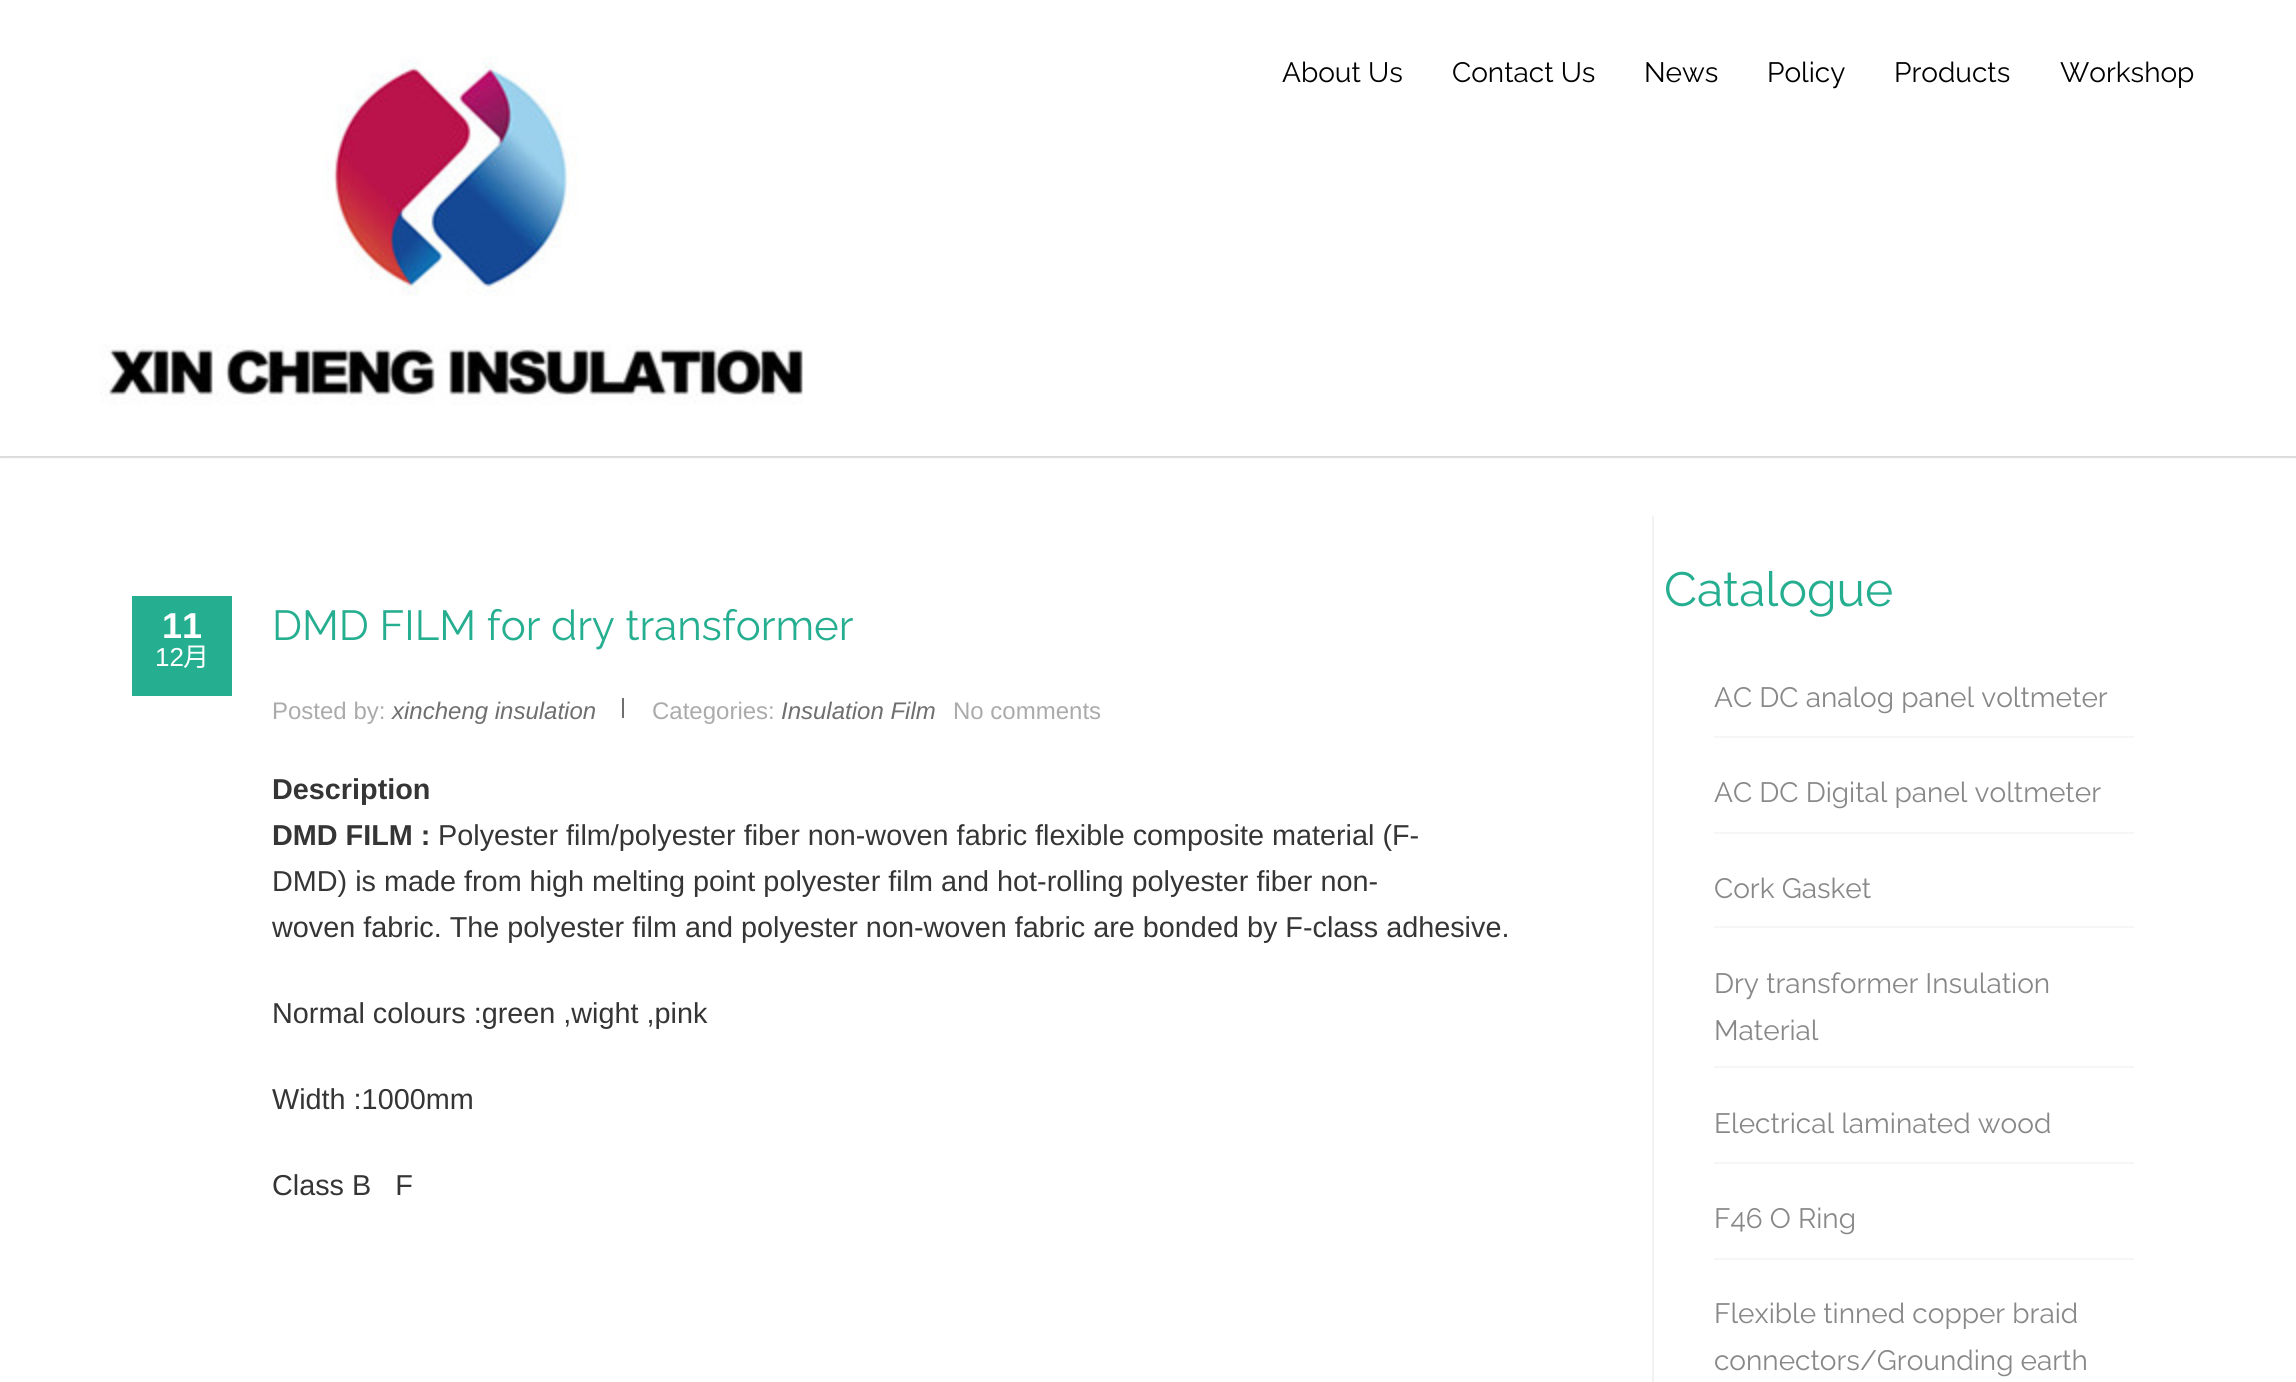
#include <cairo.h>
#include <math.h>
#include <stddef.h>


static void round_rect(cairo_t *cr, double x, double y, double w, double h, double r) {
    cairo_new_sub_path(cr);
    cairo_arc(cr, x + w - r, y + h - r, r, 0, M_PI / 2);
    cairo_arc(cr, x + r, y + h - r, r, M_PI / 2, M_PI);
    cairo_arc(cr, x + r, y + r, r, M_PI, 1.5 * M_PI);
    cairo_arc(cr, x + w - r, y + r, r, 1.5 * M_PI, 2 * M_PI);
    cairo_close_path(cr);
}

static void shadow(cairo_t *cr, double x, double y, double w, double h, double r, double blur, double alpha) {
    cairo_push_group_with_content(cr, CAIRO_CONTENT_ALPHA);
    cairo_set_operator(cr, CAIRO_OPERATOR_SOURCE);
    for (int i = 15; i >= -15 && fmin(w, h) + blur * i / 3 > 0; i -= 2) {
        double e = blur * i / 6;
        cairo_set_source_rgba(cr, 0, 0, 0, alpha * erfc((i - 1) / 8.5) / 2);
        round_rect(cr, x - e, y - e, w + 2 * e, h + 2 * e, fmax(0, fmin(r + e + blur * .6, fmin(w, h) / 2 + e)));
        cairo_fill(cr);
    }
    cairo_pattern_t *soft = cairo_pop_group(cr);
    cairo_mask(cr, soft);
    cairo_pattern_destroy(soft);
}

static void picture(cairo_t *cr, const char *path, double x, double y, double w, double h) {
    cairo_surface_t *image = cairo_image_surface_create_from_png(path);
    cairo_save(cr);
    cairo_set_source_surface(cr, image, x, y);
    cairo_rectangle(cr, x, y, w, h);
    cairo_fill(cr);
    cairo_restore(cr);
    cairo_surface_destroy(image);
}

int main(void) {
    cairo_surface_t *surface = cairo_image_surface_create(CAIRO_FORMAT_RGB24, 2296, 1382);
    cairo_t *cr = cairo_create(surface);
    cairo_font_options_t *options = cairo_font_options_create();
    cairo_font_options_set_hint_metrics(options, CAIRO_HINT_METRICS_OFF);
    cairo_font_options_set_hint_style(options, CAIRO_HINT_STYLE_NONE);
    cairo_set_font_options(cr, options);
    cairo_set_miter_limit(cr, 4);
    cairo_set_source_rgb(cr, 1, 1, 1);
    cairo_paint(cr);
    cairo_set_source_rgb(cr, 0.941, 0.941, 0.941);
    cairo_rectangle(cr, 0, 456, 2296, 2);
    cairo_fill(cr);
    cairo_save(cr);
    cairo_rectangle(cr, 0, 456, 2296, 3);
    cairo_clip(cr);
    cairo_set_source_rgb(cr, 0, 0, 0);
    shadow(cr, 0, 2, 2296, 456, 0, 1, 0.1);
    cairo_restore(cr);
    picture(cr, "img1.png", 100, 56, 703, 349);
    cairo_select_font_face(cr, "Raleway Thin", CAIRO_FONT_SLANT_NORMAL, CAIRO_FONT_WEIGHT_NORMAL);
    cairo_set_font_size(cr, 28);
    cairo_set_source_rgb(cr, 0, 0, 0);
    cairo_move_to(cr, 1282, 82);
    cairo_show_text(cr, "About Us");
    cairo_move_to(cr, 1452, 82);
    cairo_show_text(cr, "Contact Us");
    cairo_move_to(cr, 1644, 82);
    cairo_show_text(cr, "News");
    cairo_move_to(cr, 1767, 82);
    cairo_show_text(cr, "Policy");
    cairo_move_to(cr, 1894, 82);
    cairo_show_text(cr, "Products");
    cairo_move_to(cr, 2060, 82);
    cairo_show_text(cr, "Workshop");
    cairo_set_source_rgb(cr, 0.149, 0.682, 0.565);
    cairo_rectangle(cr, 132, 596, 100, 100);
    cairo_fill(cr);
    cairo_select_font_face(cr, "Liberation Sans", CAIRO_FONT_SLANT_NORMAL, CAIRO_FONT_WEIGHT_BOLD);
    cairo_set_font_size(cr, 36);
    cairo_set_source_rgb(cr, 1, 1, 1);
    cairo_move_to(cr, 162, 638);
    cairo_show_text(cr, "11");
    cairo_select_font_face(cr, "Liberation Sans", CAIRO_FONT_SLANT_NORMAL, CAIRO_FONT_WEIGHT_NORMAL);
    cairo_set_font_size(cr, 26);
    cairo_move_to(cr, 155, 666);
    cairo_show_text(cr, "12");
    cairo_select_font_face(cr, "Noto Sans CJK SC", CAIRO_FONT_SLANT_NORMAL, CAIRO_FONT_WEIGHT_NORMAL);
    cairo_move_to(cr, 183, 666);
    cairo_show_text(cr, "月");
    cairo_select_font_face(cr, "Raleway Thin", CAIRO_FONT_SLANT_NORMAL, CAIRO_FONT_WEIGHT_NORMAL);
    cairo_set_font_size(cr, 42);
    cairo_set_source_rgb(cr, 0.149, 0.682, 0.565);
    cairo_move_to(cr, 272, 640);
    cairo_show_text(cr, "DMD FILM for dry transformer");
    cairo_select_font_face(cr, "Liberation Sans", CAIRO_FONT_SLANT_NORMAL, CAIRO_FONT_WEIGHT_NORMAL);
    cairo_set_font_size(cr, 24);
    cairo_set_source_rgb(cr, 0.671, 0.671, 0.671);
    cairo_move_to(cr, 272, 719);
    cairo_show_text(cr, "Posted by:");
    cairo_select_font_face(cr, "Liberation Sans", CAIRO_FONT_SLANT_ITALIC, CAIRO_FONT_WEIGHT_NORMAL);
    cairo_set_source_rgb(cr, 0.435, 0.435, 0.435);
    cairo_move_to(cr, 392, 719);
    cairo_show_text(cr, "xincheng insulation");
    cairo_rectangle(cr, 622, 698, 2, 20);
    cairo_fill(cr);
    cairo_select_font_face(cr, "Liberation Sans", CAIRO_FONT_SLANT_NORMAL, CAIRO_FONT_WEIGHT_NORMAL);
    cairo_set_source_rgb(cr, 0.671, 0.671, 0.671);
    cairo_move_to(cr, 652, 719);
    cairo_show_text(cr, "Categories:");
    cairo_select_font_face(cr, "Liberation Sans", CAIRO_FONT_SLANT_ITALIC, CAIRO_FONT_WEIGHT_NORMAL);
    cairo_set_source_rgb(cr, 0.435, 0.435, 0.435);
    cairo_move_to(cr, 781, 719);
    cairo_show_text(cr, "Insulation Film");
    cairo_select_font_face(cr, "Liberation Sans", CAIRO_FONT_SLANT_NORMAL, CAIRO_FONT_WEIGHT_NORMAL);
    cairo_set_source_rgb(cr, 0.671, 0.671, 0.671);
    cairo_move_to(cr, 953, 719);
    cairo_show_text(cr, "No comments");
    cairo_select_font_face(cr, "Liberation Sans", CAIRO_FONT_SLANT_NORMAL, CAIRO_FONT_WEIGHT_BOLD);
    cairo_set_font_size(cr, 28.8);
    cairo_set_source_rgb(cr, 0.208, 0.208, 0.208);
    cairo_move_to(cr, 272, 799);
    cairo_show_text(cr, "Description");
    cairo_move_to(cr, 272, 845);
    cairo_show_text(cr, "DMD FILM :");
    cairo_select_font_face(cr, "Liberation Sans", CAIRO_FONT_SLANT_NORMAL, CAIRO_FONT_WEIGHT_NORMAL);
    cairo_move_to(cr, 438, 845);
    cairo_show_text(cr, "Polyester film/polyester fiber non-woven fabric flexible composite material (F-");
    cairo_move_to(cr, 272, 891);
    cairo_show_text(cr, "DMD) is made from high melting point polyester film and hot-rolling polyester fiber non-");
    cairo_move_to(cr, 272, 937);
    cairo_show_text(cr, "woven fabric. The polyester film and polyester non-woven fabric are bonded by F-class adhesive.");
    cairo_move_to(cr, 272, 1023);
    cairo_show_text(cr, "Normal colours :green ,wight ,pink");
    cairo_move_to(cr, 272, 1109);
    cairo_show_text(cr, "Width :1000mm");
    cairo_move_to(cr, 272, 1195);
    cairo_show_text(cr, "Class B   F");
    cairo_set_source_rgb(cr, 0.949, 0.949, 0.949);
    cairo_rectangle(cr, 1652, 516, 2, 866);
    cairo_fill(cr);
    cairo_select_font_face(cr, "Raleway Thin", CAIRO_FONT_SLANT_NORMAL, CAIRO_FONT_WEIGHT_NORMAL);
    cairo_set_font_size(cr, 48);
    cairo_set_source_rgb(cr, 0.149, 0.682, 0.565);
    cairo_move_to(cr, 1664, 606);
    cairo_show_text(cr, "Catalogue");
    cairo_set_source_rgb(cr, 0.961, 0.961, 0.961);
    cairo_rectangle(cr, 1714, 736, 420, 2);
    cairo_fill(cr);
    cairo_set_font_size(cr, 28);
    cairo_set_source_rgb(cr, 0.533, 0.533, 0.533);
    cairo_move_to(cr, 1714, 707);
    cairo_show_text(cr, "AC DC analog panel voltmeter");
    cairo_set_source_rgb(cr, 0.961, 0.961, 0.961);
    cairo_rectangle(cr, 1714, 832, 420, 2);
    cairo_fill(cr);
    cairo_set_source_rgb(cr, 0.533, 0.533, 0.533);
    cairo_move_to(cr, 1714, 802);
    cairo_show_text(cr, "AC DC Digital panel voltmeter");
    cairo_set_source_rgb(cr, 0.961, 0.961, 0.961);
    cairo_rectangle(cr, 1714, 926, 420, 2);
    cairo_fill(cr);
    cairo_set_source_rgb(cr, 0.533, 0.533, 0.533);
    cairo_move_to(cr, 1714, 898);
    cairo_show_text(cr, "Cork Gasket");
    cairo_set_source_rgb(cr, 0.961, 0.961, 0.961);
    cairo_rectangle(cr, 1714, 1066, 420, 2);
    cairo_fill(cr);
    cairo_set_source_rgb(cr, 0.533, 0.533, 0.533);
    cairo_move_to(cr, 1714, 993);
    cairo_show_text(cr, "Dry transformer Insulation");
    cairo_move_to(cr, 1714, 1040);
    cairo_show_text(cr, "Material");
    cairo_set_source_rgb(cr, 0.961, 0.961, 0.961);
    cairo_rectangle(cr, 1714, 1162, 420, 2);
    cairo_fill(cr);
    cairo_set_source_rgb(cr, 0.533, 0.533, 0.533);
    cairo_move_to(cr, 1714, 1133);
    cairo_show_text(cr, "Electrical laminated wood");
    cairo_set_source_rgb(cr, 0.961, 0.961, 0.961);
    cairo_rectangle(cr, 1714, 1258, 420, 2);
    cairo_fill(cr);
    cairo_set_source_rgb(cr, 0.533, 0.533, 0.533);
    cairo_move_to(cr, 1714, 1228);
    cairo_show_text(cr, "F46 O Ring");
    cairo_move_to(cr, 1714, 1323);
    cairo_show_text(cr, "Flexible tinned copper braid");
    cairo_move_to(cr, 1714, 1370);
    cairo_show_text(cr, "connectors/Grounding earth");
    cairo_surface_write_to_png(surface, "page.png");
    cairo_font_options_destroy(options);
    cairo_destroy(cr);
    cairo_surface_destroy(surface);
    return 0;
}
